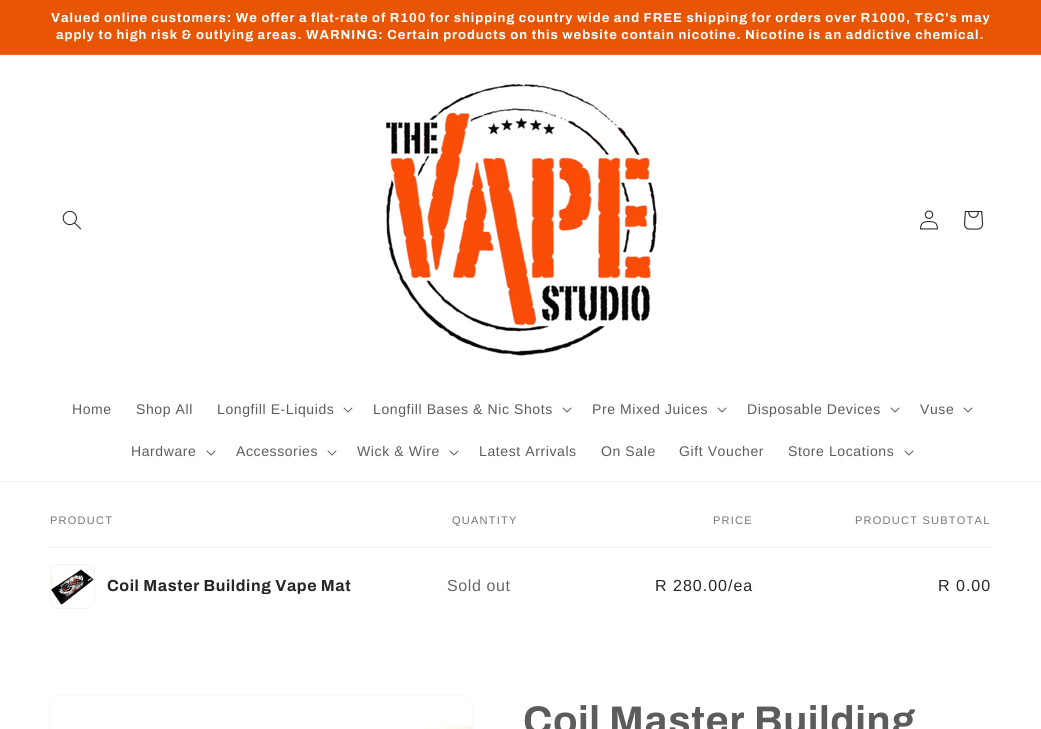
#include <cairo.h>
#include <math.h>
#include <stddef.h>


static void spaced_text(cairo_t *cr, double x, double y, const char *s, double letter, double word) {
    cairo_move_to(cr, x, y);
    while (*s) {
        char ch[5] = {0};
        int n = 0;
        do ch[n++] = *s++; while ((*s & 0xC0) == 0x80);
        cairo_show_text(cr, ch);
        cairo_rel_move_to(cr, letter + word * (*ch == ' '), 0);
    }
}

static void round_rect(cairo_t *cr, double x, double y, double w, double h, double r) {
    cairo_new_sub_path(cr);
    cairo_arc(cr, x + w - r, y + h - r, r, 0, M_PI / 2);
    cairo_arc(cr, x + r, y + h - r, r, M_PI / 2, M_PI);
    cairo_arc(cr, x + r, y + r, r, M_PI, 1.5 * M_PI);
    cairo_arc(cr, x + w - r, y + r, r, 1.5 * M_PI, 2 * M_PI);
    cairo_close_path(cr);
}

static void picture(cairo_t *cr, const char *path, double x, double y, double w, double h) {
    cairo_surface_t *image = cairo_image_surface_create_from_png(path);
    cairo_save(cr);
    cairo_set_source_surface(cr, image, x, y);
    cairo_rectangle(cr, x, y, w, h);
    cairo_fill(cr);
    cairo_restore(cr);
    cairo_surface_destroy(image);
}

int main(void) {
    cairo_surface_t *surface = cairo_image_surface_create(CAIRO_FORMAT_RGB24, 1041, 729);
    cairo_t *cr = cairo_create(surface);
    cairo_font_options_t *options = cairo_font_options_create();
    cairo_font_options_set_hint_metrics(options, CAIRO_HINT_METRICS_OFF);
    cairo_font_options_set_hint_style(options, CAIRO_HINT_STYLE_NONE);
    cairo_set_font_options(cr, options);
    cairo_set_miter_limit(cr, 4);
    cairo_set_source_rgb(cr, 1, 1, 1);
    cairo_paint(cr);
    cairo_set_source_rgb(cr, 0.906, 0.333, 0.02);
    cairo_rectangle(cr, 0, 0, 1041, 54);
    cairo_fill(cr);
    cairo_set_source_rgb(cr, 0.914, 0.388, 0.098);
    cairo_rectangle(cr, 0, 54, 1041, 1);
    cairo_fill(cr);
    cairo_select_font_face(cr, "Archivo", CAIRO_FONT_SLANT_NORMAL, CAIRO_FONT_WEIGHT_BOLD);
    cairo_set_font_size(cr, 13);
    cairo_set_source_rgb(cr, 1, 1, 1);
    spaced_text(cr, 51, 22, "Valued online customers: We offer a flat-rate of R100 for shipping country wide and FREE shipping for orders over R1000, T&C's may", 1, 0);
    spaced_text(cr, 56, 39, "apply to high risk & outlying areas. WARNING: Certain products on this website contain nicotine. Nicotine is an addictive chemical.", 1, 0);
    cairo_set_source_rgb(cr, 0.933, 0.933, 0.933);
    cairo_rectangle(cr, 0, 481, 1041, 1);
    cairo_fill(cr);
    picture(cr, "img1.png", 62, 210, 19, 20);
    picture(cr, "img2.png", 385, 84, 272, 272);
    picture(cr, "img3.png", 920, 210, 18, 20);
    picture(cr, "img4.png", 964, 211, 20, 19);
    cairo_select_font_face(cr, "Arimo", CAIRO_FONT_SLANT_NORMAL, CAIRO_FONT_WEIGHT_NORMAL);
    cairo_set_font_size(cr, 14);
    cairo_set_source_rgb(cr, 0.369, 0.361, 0.357);
    spaced_text(cr, 72, 414, "Home", 0.6, 0);
    spaced_text(cr, 136, 414, "Shop All", 0.6, 0);
    spaced_text(cr, 217, 414, "Longfill E-Liquids", 0.6, 0);
    picture(cr, "img5.png", 343, 407, 10, 6);
    spaced_text(cr, 373, 414, "Longfill Bases & Nic Shots", 0.6, 0);
    picture(cr, "img5.png", 562, 407, 10, 6);
    spaced_text(cr, 592, 414, "Pre Mixed Juices", 0.6, 0);
    picture(cr, "img5.png", 717, 407, 10, 6);
    spaced_text(cr, 747, 414, "Disposable Devices", 0.6, 0);
    picture(cr, "img5.png", 890, 407, 10, 6);
    spaced_text(cr, 920, 414, "Vuse", 0.6, 0);
    picture(cr, "img5.png", 963, 407, 10, 6);
    spaced_text(cr, 131, 456, "Hardware", 0.6, 0);
    picture(cr, "img5.png", 206, 450, 10, 6);
    spaced_text(cr, 236, 456, "Accessories", 0.6, 0);
    picture(cr, "img5.png", 327, 450, 10, 6);
    spaced_text(cr, 357, 456, "Wick & Wire", 0.6, 0);
    picture(cr, "img5.png", 449, 450, 10, 6);
    spaced_text(cr, 479, 456, "Latest Arrivals", 0.6, 0);
    spaced_text(cr, 601, 456, "On Sale", 0.6, 0);
    spaced_text(cr, 679, 456, "Gift Voucher", 0.6, 0);
    spaced_text(cr, 788, 456, "Store Locations", 0.6, 0);
    picture(cr, "img5.png", 904, 450, 10, 6);
    cairo_set_source_rgb(cr, 0.941, 0.941, 0.941);
    cairo_rectangle(cr, 50, 547, 941, 1);
    cairo_fill(cr);
    cairo_set_font_size(cr, 11);
    cairo_set_source_rgb(cr, 0.459, 0.459, 0.459);
    spaced_text(cr, 50, 524, "PRODUCT", 1.25, 0);
    spaced_text(cr, 452, 524, "QUANTITY", 1.25, 0);
    spaced_text(cr, 713, 524, "PRICE", 1.25, 0);
    spaced_text(cr, 855, 524, "PRODUCT SUBTOTAL", 1.25, 0);
    round_rect(cr, 50.5, 564.5, 44, 44, 7.5);
    cairo_set_source_rgb(cr, 0.957, 0.957, 0.957);
    cairo_set_line_width(cr, 1);
    cairo_stroke(cr);
    picture(cr, "img6.png", 51, 568, 43, 37);
    cairo_select_font_face(cr, "Archivo", CAIRO_FONT_SLANT_NORMAL, CAIRO_FONT_WEIGHT_BOLD);
    cairo_set_font_size(cr, 16);
    cairo_set_source_rgb(cr, 0.149, 0.149, 0.149);
    spaced_text(cr, 107, 591, "Coil Master Building Vape Mat", 0.6, 0);
    cairo_select_font_face(cr, "Arimo", CAIRO_FONT_SLANT_NORMAL, CAIRO_FONT_WEIGHT_NORMAL);
    cairo_set_source_rgb(cr, 0.404, 0.404, 0.404);
    spaced_text(cr, 447, 591, "Sold out", 0.6, 0);
    cairo_set_source_rgb(cr, 0.149, 0.149, 0.149);
    spaced_text(cr, 655, 591, "R 280.00/ea", 1, 0);
    spaced_text(cr, 938, 591, "R 0.00", 1, 0);
    round_rect(cr, 50.5, 695.5, 422, 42, 7.5);
    cairo_set_source_rgb(cr, 0.969, 0.969, 0.969);
    cairo_stroke(cr);
    picture(cr, "img7.png", 426, 725, 46, 4);
    cairo_select_font_face(cr, "Archivo", CAIRO_FONT_SLANT_NORMAL, CAIRO_FONT_WEIGHT_BOLD);
    cairo_set_font_size(cr, 40);
    cairo_set_source_rgb(cr, 0.369, 0.361, 0.357);
    spaced_text(cr, 523, 734, "Coil Master Building", 0.6, 0);
    cairo_surface_write_to_png(surface, "page.png");
    cairo_font_options_destroy(options);
    cairo_destroy(cr);
    cairo_surface_destroy(surface);
    return 0;
}
